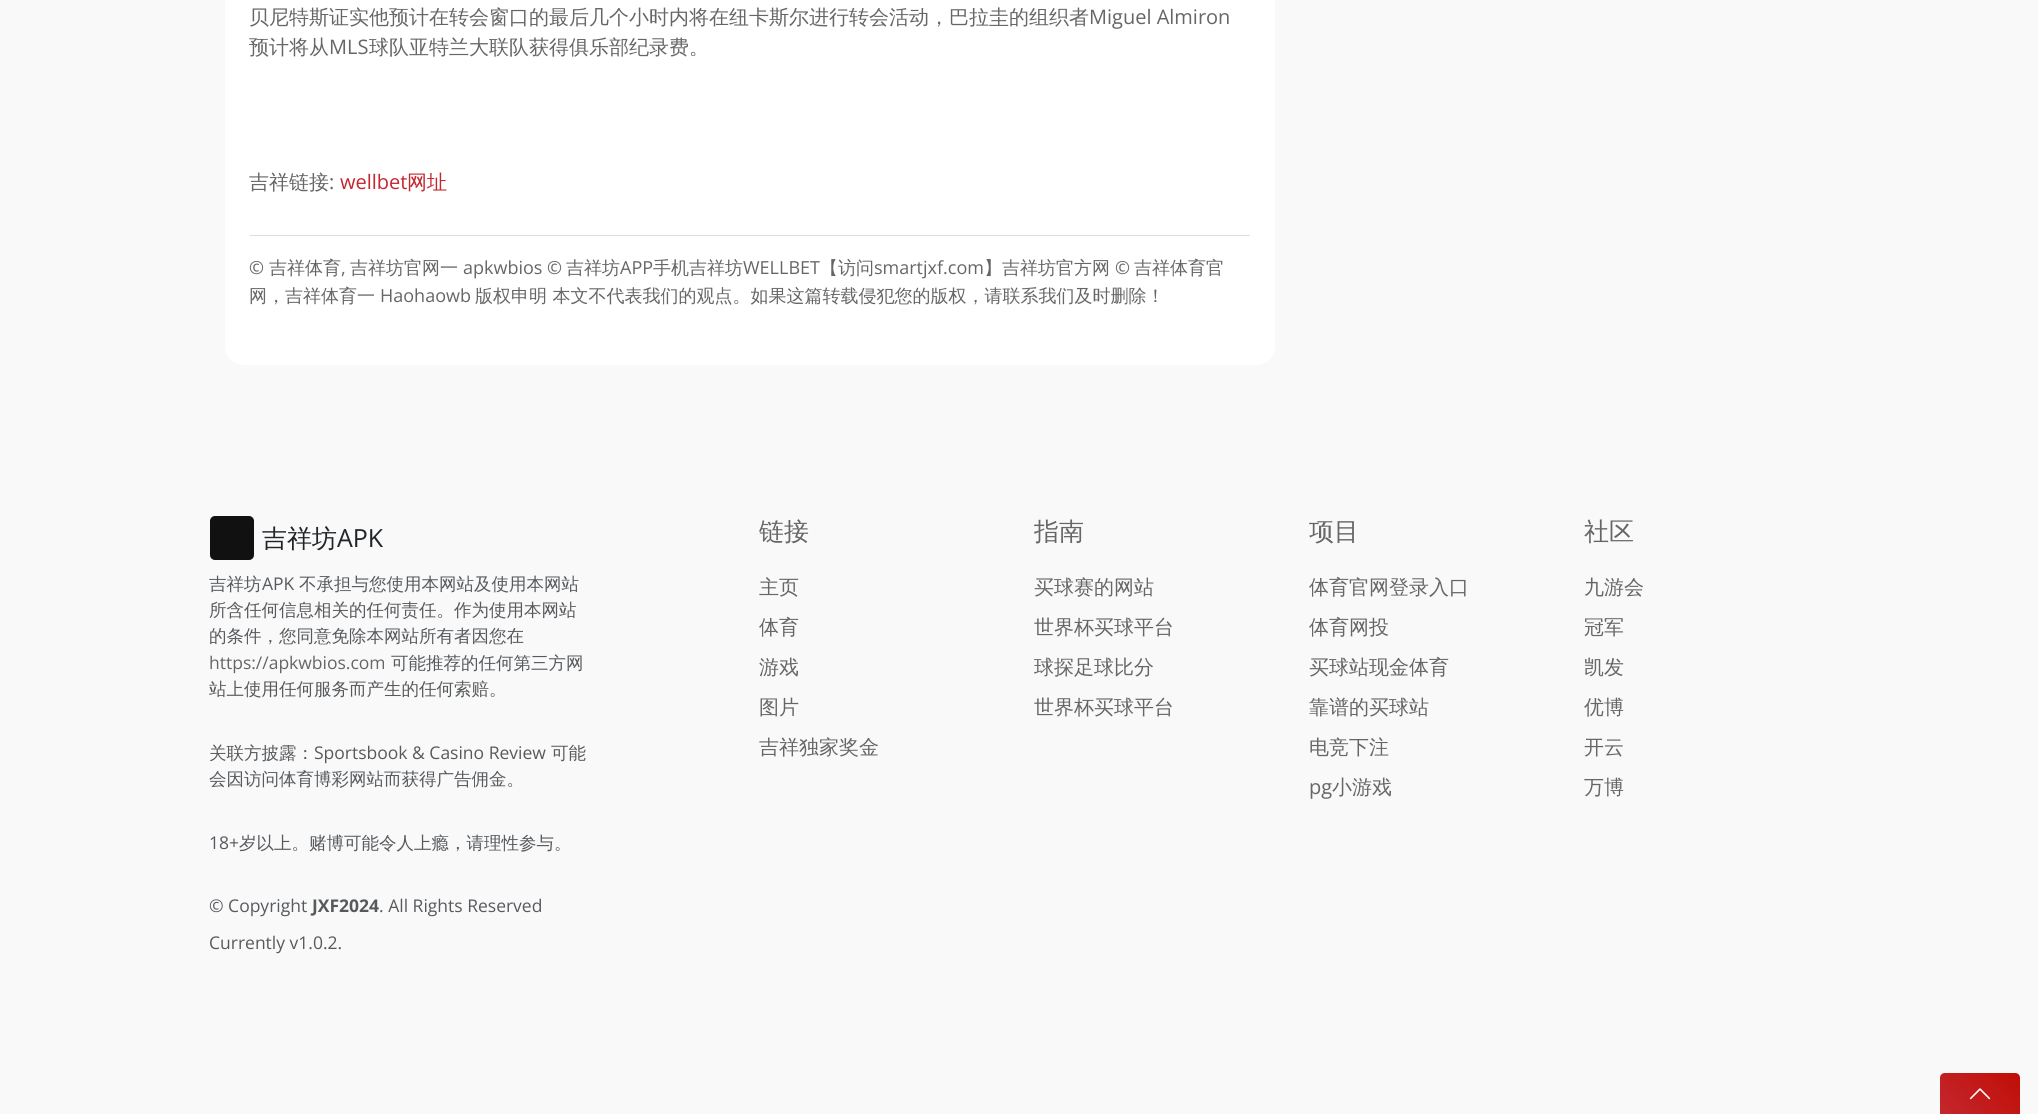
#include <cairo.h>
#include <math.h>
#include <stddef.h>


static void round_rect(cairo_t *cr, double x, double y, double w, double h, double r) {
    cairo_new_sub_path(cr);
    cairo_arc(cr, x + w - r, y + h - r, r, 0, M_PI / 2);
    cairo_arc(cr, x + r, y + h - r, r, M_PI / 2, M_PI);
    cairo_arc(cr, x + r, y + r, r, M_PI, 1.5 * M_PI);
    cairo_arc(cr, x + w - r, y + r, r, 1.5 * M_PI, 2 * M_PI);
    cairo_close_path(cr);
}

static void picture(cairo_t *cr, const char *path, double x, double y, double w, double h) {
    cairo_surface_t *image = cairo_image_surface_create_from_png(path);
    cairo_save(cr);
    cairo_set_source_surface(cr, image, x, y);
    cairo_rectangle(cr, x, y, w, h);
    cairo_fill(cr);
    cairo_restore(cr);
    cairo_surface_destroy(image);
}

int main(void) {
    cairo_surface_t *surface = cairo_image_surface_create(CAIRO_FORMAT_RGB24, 2038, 1114);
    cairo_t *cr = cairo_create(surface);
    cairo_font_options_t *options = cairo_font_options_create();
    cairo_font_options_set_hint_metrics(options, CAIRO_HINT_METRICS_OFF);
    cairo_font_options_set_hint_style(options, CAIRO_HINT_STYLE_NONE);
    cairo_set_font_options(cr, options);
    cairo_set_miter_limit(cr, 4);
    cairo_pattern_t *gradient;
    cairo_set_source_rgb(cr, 0.973, 0.976, 0.98);
    cairo_paint(cr);
    cairo_set_source_rgb(cr, 1, 1, 1);
    round_rect(cr, 225, -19, 1050, 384, 19);
    cairo_fill(cr);
    cairo_select_font_face(cr, "WenQuanYi Zen Hei Medium", CAIRO_FONT_SLANT_NORMAL, CAIRO_FONT_WEIGHT_NORMAL);
    cairo_set_font_size(cr, 20);
    cairo_set_source_rgb(cr, 0.4, 0.4, 0.4);
    cairo_move_to(cr, 249, 24);
    cairo_show_text(cr, "贝尼特斯证实他预计在转会窗口的最后几个小时内将在纽卡斯尔进行转会活动，巴拉圭的组织者");
    cairo_select_font_face(cr, "Open Sans", CAIRO_FONT_SLANT_NORMAL, CAIRO_FONT_WEIGHT_NORMAL);
    cairo_move_to(cr, 1089, 24);
    cairo_show_text(cr, "Miguel Almiron");
    cairo_select_font_face(cr, "WenQuanYi Zen Hei Medium", CAIRO_FONT_SLANT_NORMAL, CAIRO_FONT_WEIGHT_NORMAL);
    cairo_move_to(cr, 249, 54);
    cairo_show_text(cr, "预计将从");
    cairo_select_font_face(cr, "Open Sans", CAIRO_FONT_SLANT_NORMAL, CAIRO_FONT_WEIGHT_NORMAL);
    cairo_move_to(cr, 329, 54);
    cairo_show_text(cr, "MLS");
    cairo_select_font_face(cr, "WenQuanYi Zen Hei Medium", CAIRO_FONT_SLANT_NORMAL, CAIRO_FONT_WEIGHT_NORMAL);
    cairo_move_to(cr, 369, 54);
    cairo_show_text(cr, "球队亚特兰大联队获得俱乐部纪录费。");
    cairo_move_to(cr, 249, 189);
    cairo_show_text(cr, "吉祥链接");
    cairo_select_font_face(cr, "Open Sans", CAIRO_FONT_SLANT_NORMAL, CAIRO_FONT_WEIGHT_NORMAL);
    cairo_move_to(cr, 329, 189);
    cairo_show_text(cr, ":");
    cairo_set_source_rgb(cr, 0.765, 0.153, 0.184);
    cairo_move_to(cr, 340, 189);
    cairo_show_text(cr, "wellbet");
    cairo_select_font_face(cr, "WenQuanYi Zen Hei Medium", CAIRO_FONT_SLANT_NORMAL, CAIRO_FONT_WEIGHT_NORMAL);
    cairo_move_to(cr, 407, 189);
    cairo_show_text(cr, "网址");
    cairo_set_source_rgb(cr, 0.867, 0.867, 0.867);
    cairo_rectangle(cr, 250, 235, 1000, 1);
    cairo_fill(cr);
    cairo_select_font_face(cr, "Open Sans", CAIRO_FONT_SLANT_NORMAL, CAIRO_FONT_WEIGHT_NORMAL);
    cairo_set_font_size(cr, 18);
    cairo_set_source_rgb(cr, 0.4, 0.4, 0.4);
    cairo_move_to(cr, 249, 274);
    cairo_show_text(cr, "©");
    cairo_select_font_face(cr, "WenQuanYi Zen Hei Medium", CAIRO_FONT_SLANT_NORMAL, CAIRO_FONT_WEIGHT_NORMAL);
    cairo_move_to(cr, 269, 274);
    cairo_show_text(cr, "吉祥体育");
    cairo_select_font_face(cr, "Open Sans", CAIRO_FONT_SLANT_NORMAL, CAIRO_FONT_WEIGHT_NORMAL);
    cairo_move_to(cr, 341, 274);
    cairo_show_text(cr, ",");
    cairo_select_font_face(cr, "WenQuanYi Zen Hei Medium", CAIRO_FONT_SLANT_NORMAL, CAIRO_FONT_WEIGHT_NORMAL);
    cairo_move_to(cr, 350, 274);
    cairo_show_text(cr, "吉祥坊官网一");
    cairo_select_font_face(cr, "Open Sans", CAIRO_FONT_SLANT_NORMAL, CAIRO_FONT_WEIGHT_NORMAL);
    cairo_move_to(cr, 463, 274);
    cairo_show_text(cr, "apkwbios ©");
    cairo_select_font_face(cr, "WenQuanYi Zen Hei Medium", CAIRO_FONT_SLANT_NORMAL, CAIRO_FONT_WEIGHT_NORMAL);
    cairo_move_to(cr, 566, 274);
    cairo_show_text(cr, "吉祥坊");
    cairo_select_font_face(cr, "Open Sans", CAIRO_FONT_SLANT_NORMAL, CAIRO_FONT_WEIGHT_NORMAL);
    cairo_move_to(cr, 620, 274);
    cairo_show_text(cr, "APP");
    cairo_select_font_face(cr, "WenQuanYi Zen Hei Medium", CAIRO_FONT_SLANT_NORMAL, CAIRO_FONT_WEIGHT_NORMAL);
    cairo_move_to(cr, 653, 274);
    cairo_show_text(cr, "手机吉祥坊");
    cairo_select_font_face(cr, "Open Sans", CAIRO_FONT_SLANT_NORMAL, CAIRO_FONT_WEIGHT_NORMAL);
    cairo_move_to(cr, 743, 274);
    cairo_show_text(cr, "WELLBET");
    cairo_select_font_face(cr, "WenQuanYi Zen Hei Medium", CAIRO_FONT_SLANT_NORMAL, CAIRO_FONT_WEIGHT_NORMAL);
    cairo_move_to(cr, 820, 274);
    cairo_show_text(cr, "【访问");
    cairo_select_font_face(cr, "Open Sans", CAIRO_FONT_SLANT_NORMAL, CAIRO_FONT_WEIGHT_NORMAL);
    cairo_move_to(cr, 874, 274);
    cairo_show_text(cr, "smartjxf.com");
    cairo_select_font_face(cr, "WenQuanYi Zen Hei Medium", CAIRO_FONT_SLANT_NORMAL, CAIRO_FONT_WEIGHT_NORMAL);
    cairo_move_to(cr, 984, 274);
    cairo_show_text(cr, "】吉祥坊官方网");
    cairo_select_font_face(cr, "Open Sans", CAIRO_FONT_SLANT_NORMAL, CAIRO_FONT_WEIGHT_NORMAL);
    cairo_move_to(cr, 1115, 274);
    cairo_show_text(cr, "©");
    cairo_select_font_face(cr, "WenQuanYi Zen Hei Medium", CAIRO_FONT_SLANT_NORMAL, CAIRO_FONT_WEIGHT_NORMAL);
    cairo_move_to(cr, 1134, 274);
    cairo_show_text(cr, "吉祥体育官");
    cairo_move_to(cr, 249, 302);
    cairo_show_text(cr, "网，吉祥体育一");
    cairo_select_font_face(cr, "Open Sans", CAIRO_FONT_SLANT_NORMAL, CAIRO_FONT_WEIGHT_NORMAL);
    cairo_move_to(cr, 380, 302);
    cairo_show_text(cr, "Haohaowb");
    cairo_select_font_face(cr, "WenQuanYi Zen Hei Medium", CAIRO_FONT_SLANT_NORMAL, CAIRO_FONT_WEIGHT_NORMAL);
    cairo_move_to(cr, 475, 302);
    cairo_show_text(cr, "版权申明 本文不代表我们的观点。如果这篇转载侵犯您的版权，请联系我们及时删除！");
    cairo_set_source_rgb(cr, 0.067, 0.067, 0.067);
    round_rect(cr, 210, 516, 44, 44, 5);
    cairo_fill(cr);
    cairo_set_font_size(cr, 25);
    cairo_set_source_rgb(cr, 0.129, 0.145, 0.161);
    cairo_move_to(cr, 262, 547);
    cairo_show_text(cr, "吉祥坊");
    cairo_select_font_face(cr, "Open Sans", CAIRO_FONT_SLANT_NORMAL, CAIRO_FONT_WEIGHT_NORMAL);
    cairo_move_to(cr, 337, 547);
    cairo_show_text(cr, "APK");
    cairo_select_font_face(cr, "WenQuanYi Zen Hei Medium", CAIRO_FONT_SLANT_NORMAL, CAIRO_FONT_WEIGHT_NORMAL);
    cairo_set_font_size(cr, 17.5);
    cairo_set_source_rgb(cr, 0.341, 0.353, 0.365);
    cairo_move_to(cr, 209, 590);
    cairo_show_text(cr, "吉祥坊");
    cairo_select_font_face(cr, "Open Sans", CAIRO_FONT_SLANT_NORMAL, CAIRO_FONT_WEIGHT_NORMAL);
    cairo_move_to(cr, 262, 590);
    cairo_show_text(cr, "APK");
    cairo_select_font_face(cr, "WenQuanYi Zen Hei Medium", CAIRO_FONT_SLANT_NORMAL, CAIRO_FONT_WEIGHT_NORMAL);
    cairo_move_to(cr, 299, 590);
    cairo_show_text(cr, "不承担与您使用本网站及使用本网站");
    cairo_move_to(cr, 209, 616);
    cairo_show_text(cr, "所含任何信息相关的任何责任。作为使用本网站");
    cairo_move_to(cr, 209, 642);
    cairo_show_text(cr, "的条件，您同意免除本网站所有者因您在");
    cairo_select_font_face(cr, "Open Sans", CAIRO_FONT_SLANT_NORMAL, CAIRO_FONT_WEIGHT_NORMAL);
    cairo_set_source_rgb(cr, 0.4, 0.4, 0.4);
    cairo_move_to(cr, 209, 669);
    cairo_show_text(cr, "https://apkwbios.com");
    cairo_select_font_face(cr, "WenQuanYi Zen Hei Medium", CAIRO_FONT_SLANT_NORMAL, CAIRO_FONT_WEIGHT_NORMAL);
    cairo_set_source_rgb(cr, 0.341, 0.353, 0.365);
    cairo_move_to(cr, 391, 669);
    cairo_show_text(cr, "可能推荐的任何第三方网");
    cairo_move_to(cr, 209, 695);
    cairo_show_text(cr, "站上使用任何服务而产生的任何索赔。");
    cairo_move_to(cr, 209, 759);
    cairo_show_text(cr, "关联方披露：");
    cairo_select_font_face(cr, "Open Sans", CAIRO_FONT_SLANT_NORMAL, CAIRO_FONT_WEIGHT_NORMAL);
    cairo_move_to(cr, 314, 759);
    cairo_show_text(cr, "Sportsbook & Casino Review");
    cairo_select_font_face(cr, "WenQuanYi Zen Hei Medium", CAIRO_FONT_SLANT_NORMAL, CAIRO_FONT_WEIGHT_NORMAL);
    cairo_move_to(cr, 551, 759);
    cairo_show_text(cr, "可能");
    cairo_move_to(cr, 209, 785);
    cairo_show_text(cr, "会因访问体育博彩网站而获得广告佣金。");
    cairo_select_font_face(cr, "Open Sans", CAIRO_FONT_SLANT_NORMAL, CAIRO_FONT_WEIGHT_NORMAL);
    cairo_move_to(cr, 209, 849);
    cairo_show_text(cr, "18+");
    cairo_select_font_face(cr, "WenQuanYi Zen Hei Medium", CAIRO_FONT_SLANT_NORMAL, CAIRO_FONT_WEIGHT_NORMAL);
    cairo_move_to(cr, 239, 849);
    cairo_show_text(cr, "岁以上。赌博可能令人上瘾，请理性参与。");
    cairo_select_font_face(cr, "Open Sans", CAIRO_FONT_SLANT_NORMAL, CAIRO_FONT_WEIGHT_NORMAL);
    cairo_move_to(cr, 209, 912);
    cairo_show_text(cr, "© Copyright");
    cairo_select_font_face(cr, "Open Sans", CAIRO_FONT_SLANT_NORMAL, CAIRO_FONT_WEIGHT_BOLD);
    cairo_move_to(cr, 312, 912);
    cairo_show_text(cr, "JXF2024");
    cairo_select_font_face(cr, "Open Sans", CAIRO_FONT_SLANT_NORMAL, CAIRO_FONT_WEIGHT_NORMAL);
    cairo_move_to(cr, 379, 912);
    cairo_show_text(cr, ". All Rights Reserved");
    cairo_move_to(cr, 209, 949);
    cairo_show_text(cr, "Currently v1.0.2.");
    cairo_select_font_face(cr, "WenQuanYi Zen Hei Medium", CAIRO_FONT_SLANT_NORMAL, CAIRO_FONT_WEIGHT_NORMAL);
    cairo_set_font_size(cr, 25);
    cairo_set_source_rgb(cr, 0.4, 0.4, 0.4);
    cairo_move_to(cr, 759, 540);
    cairo_show_text(cr, "链接");
    cairo_set_font_size(cr, 20);
    cairo_move_to(cr, 759, 594);
    cairo_show_text(cr, "主页");
    cairo_move_to(cr, 759, 634);
    cairo_show_text(cr, "体育");
    cairo_move_to(cr, 759, 674);
    cairo_show_text(cr, "游戏");
    cairo_move_to(cr, 759, 714);
    cairo_show_text(cr, "图片");
    cairo_move_to(cr, 759, 754);
    cairo_show_text(cr, "吉祥独家奖金");
    cairo_set_font_size(cr, 25);
    cairo_move_to(cr, 1034, 540);
    cairo_show_text(cr, "指南");
    cairo_set_font_size(cr, 20);
    cairo_move_to(cr, 1034, 594);
    cairo_show_text(cr, "买球赛的网站");
    cairo_move_to(cr, 1034, 634);
    cairo_show_text(cr, "世界杯买球平台");
    cairo_move_to(cr, 1034, 674);
    cairo_show_text(cr, "球探足球比分");
    cairo_move_to(cr, 1034, 714);
    cairo_show_text(cr, "世界杯买球平台");
    cairo_set_font_size(cr, 25);
    cairo_move_to(cr, 1309, 540);
    cairo_show_text(cr, "项目");
    cairo_set_font_size(cr, 20);
    cairo_move_to(cr, 1309, 594);
    cairo_show_text(cr, "体育官网登录入口");
    cairo_move_to(cr, 1309, 634);
    cairo_show_text(cr, "体育网投");
    cairo_move_to(cr, 1309, 674);
    cairo_show_text(cr, "买球站现金体育");
    cairo_move_to(cr, 1309, 714);
    cairo_show_text(cr, "靠谱的买球站");
    cairo_move_to(cr, 1309, 754);
    cairo_show_text(cr, "电竞下注");
    cairo_select_font_face(cr, "Open Sans", CAIRO_FONT_SLANT_NORMAL, CAIRO_FONT_WEIGHT_NORMAL);
    cairo_move_to(cr, 1309, 794);
    cairo_show_text(cr, "pg");
    cairo_select_font_face(cr, "WenQuanYi Zen Hei Medium", CAIRO_FONT_SLANT_NORMAL, CAIRO_FONT_WEIGHT_NORMAL);
    cairo_move_to(cr, 1332, 794);
    cairo_show_text(cr, "小游戏");
    cairo_set_font_size(cr, 25);
    cairo_move_to(cr, 1584, 540);
    cairo_show_text(cr, "社区");
    cairo_set_font_size(cr, 20);
    cairo_move_to(cr, 1584, 594);
    cairo_show_text(cr, "九游会");
    cairo_move_to(cr, 1584, 634);
    cairo_show_text(cr, "冠军");
    cairo_move_to(cr, 1584, 674);
    cairo_show_text(cr, "凯发");
    cairo_move_to(cr, 1584, 714);
    cairo_show_text(cr, "优博");
    cairo_move_to(cr, 1584, 754);
    cairo_show_text(cr, "开云");
    cairo_move_to(cr, 1584, 794);
    cairo_show_text(cr, "万博");
    gradient = cairo_pattern_create_linear(1949, 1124, 2011, 1063);
    cairo_pattern_add_color_stop_rgba(gradient, 0, 0.765, 0.153, 0.184, 1);
    cairo_pattern_add_color_stop_rgba(gradient, 1, 0.757, 0.055, 0.016, 1);
    cairo_set_source(cr, gradient);
    cairo_pattern_destroy(gradient);
    cairo_new_path(cr);
    cairo_move_to(cr, 1945, 1073);
    cairo_line_to(cr, 2015, 1073);
    cairo_curve_to(cr, 2018, 1073, 2020, 1075, 2020, 1078);
    cairo_line_to(cr, 2020, 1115);
    cairo_line_to(cr, 1940, 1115);
    cairo_line_to(cr, 1940, 1078);
    cairo_curve_to(cr, 1940, 1075, 1942, 1073, 1945, 1073);
    cairo_close_path(cr);
    cairo_fill(cr);
    picture(cr, "img1.png", 1969, 1088, 22, 12);
    cairo_surface_write_to_png(surface, "page.png");
    cairo_font_options_destroy(options);
    cairo_destroy(cr);
    cairo_surface_destroy(surface);
    return 0;
}
